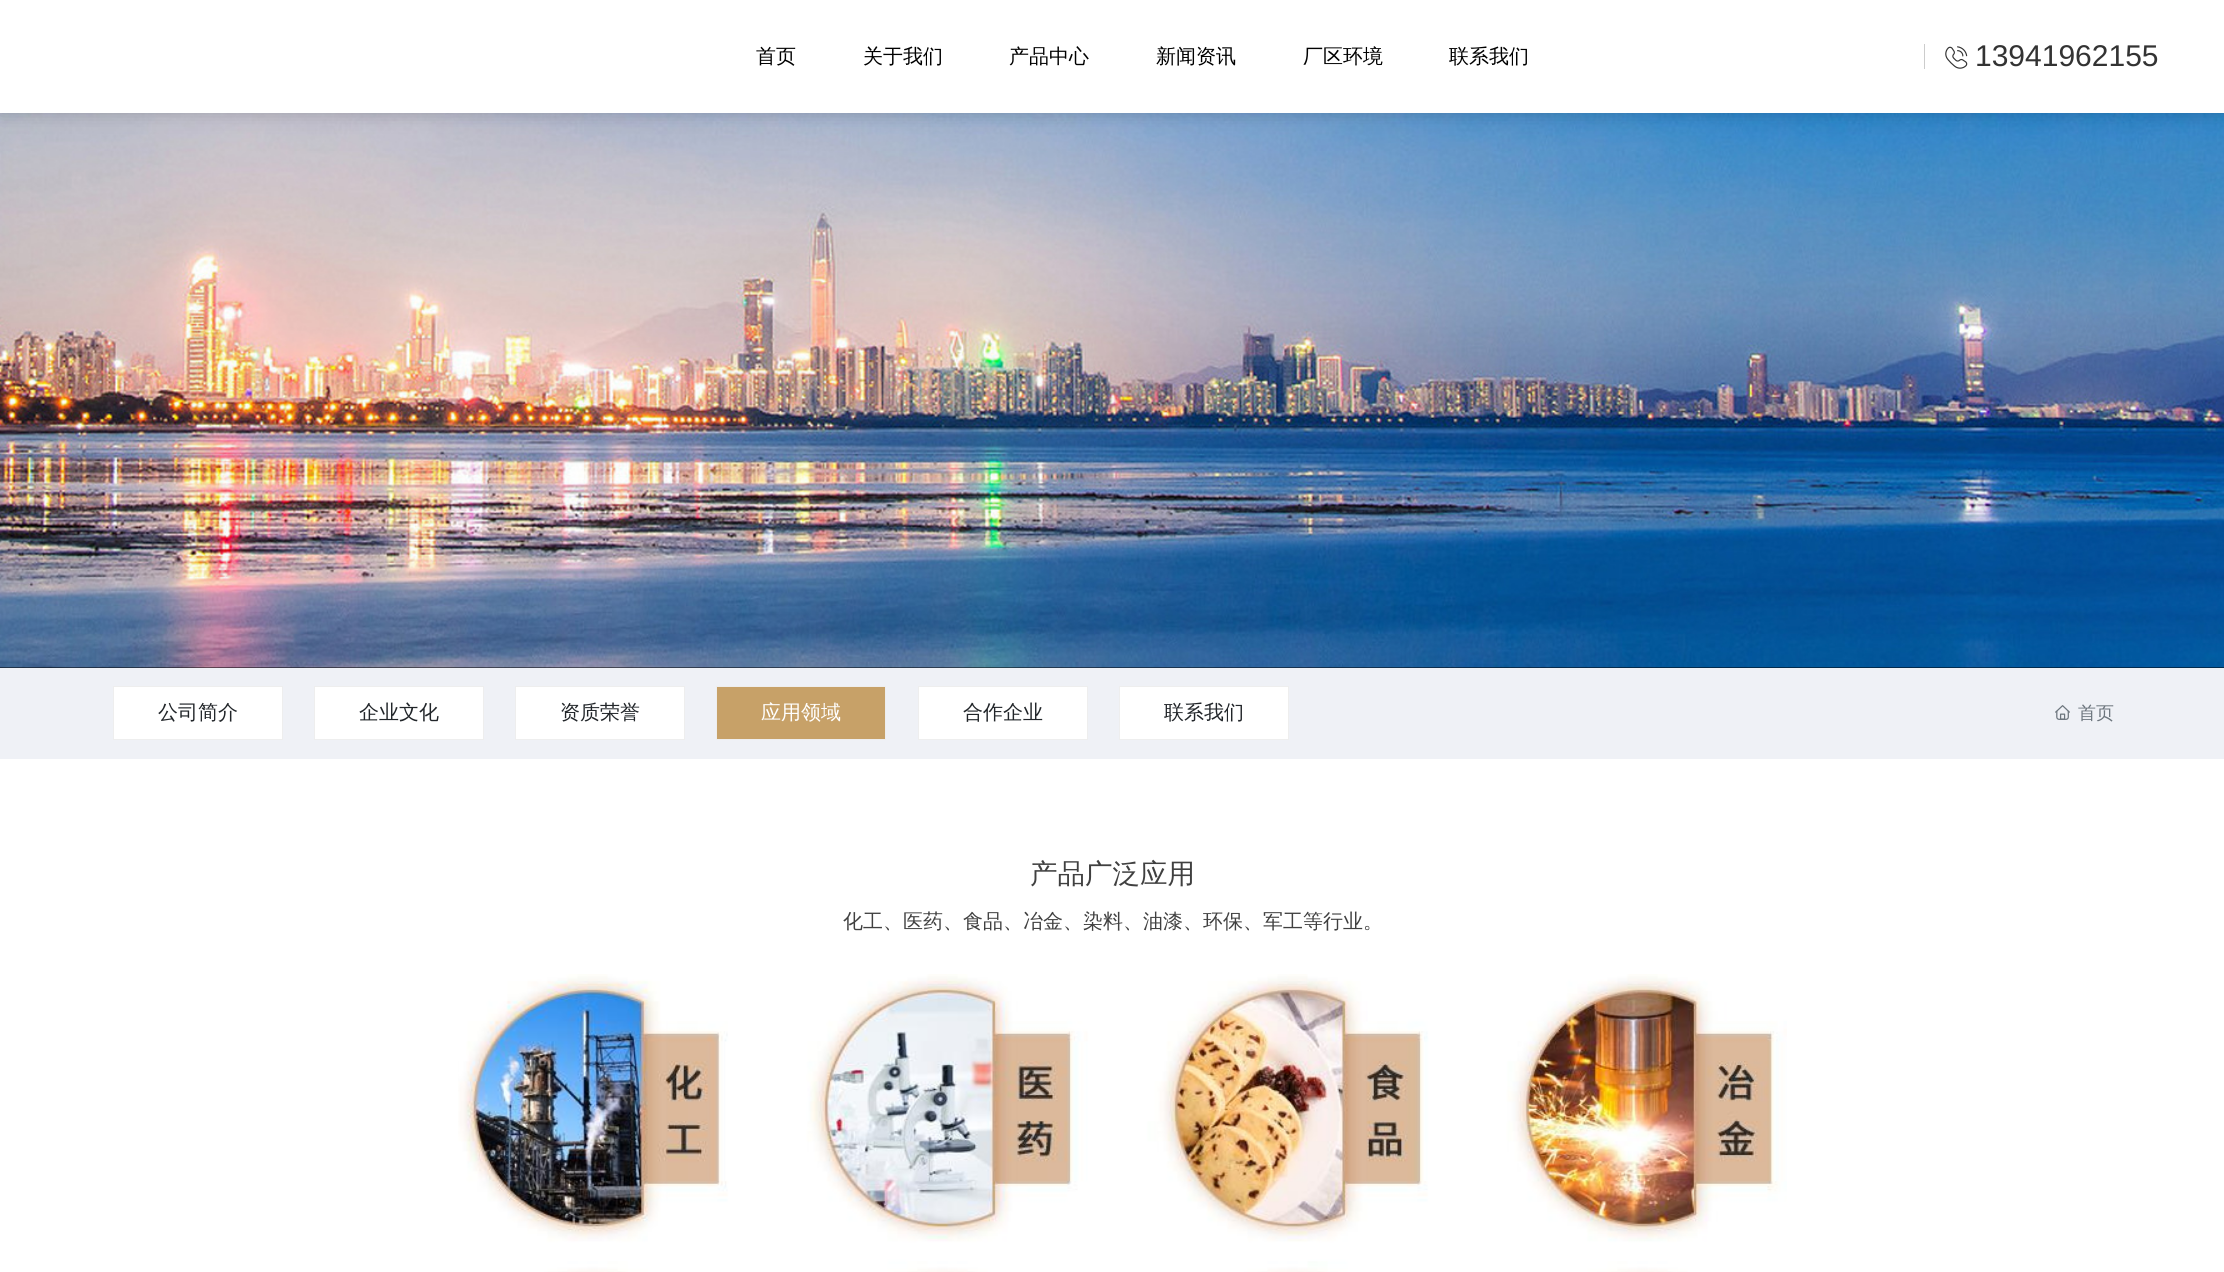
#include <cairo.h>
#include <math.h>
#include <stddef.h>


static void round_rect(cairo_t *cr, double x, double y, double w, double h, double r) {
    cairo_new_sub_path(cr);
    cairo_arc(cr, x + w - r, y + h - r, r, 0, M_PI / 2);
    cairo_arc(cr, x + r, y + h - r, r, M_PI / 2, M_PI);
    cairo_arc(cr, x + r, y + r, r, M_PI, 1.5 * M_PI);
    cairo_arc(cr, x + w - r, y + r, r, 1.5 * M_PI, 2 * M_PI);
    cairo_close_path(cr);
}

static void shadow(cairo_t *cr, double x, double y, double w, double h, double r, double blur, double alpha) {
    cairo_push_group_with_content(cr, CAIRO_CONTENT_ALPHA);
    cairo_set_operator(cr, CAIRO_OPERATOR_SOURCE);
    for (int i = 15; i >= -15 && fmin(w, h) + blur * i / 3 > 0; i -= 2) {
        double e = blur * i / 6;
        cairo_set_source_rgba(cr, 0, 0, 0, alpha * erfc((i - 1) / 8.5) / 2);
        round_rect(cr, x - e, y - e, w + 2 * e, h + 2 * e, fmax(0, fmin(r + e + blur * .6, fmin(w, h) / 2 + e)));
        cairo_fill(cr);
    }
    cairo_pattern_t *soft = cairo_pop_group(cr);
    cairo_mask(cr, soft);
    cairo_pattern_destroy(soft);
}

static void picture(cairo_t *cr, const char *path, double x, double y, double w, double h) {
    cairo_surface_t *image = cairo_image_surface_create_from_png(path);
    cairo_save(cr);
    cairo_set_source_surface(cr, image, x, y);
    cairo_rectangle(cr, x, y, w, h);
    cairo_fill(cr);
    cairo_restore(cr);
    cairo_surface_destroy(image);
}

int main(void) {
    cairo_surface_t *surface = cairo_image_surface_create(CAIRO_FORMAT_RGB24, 2224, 1272);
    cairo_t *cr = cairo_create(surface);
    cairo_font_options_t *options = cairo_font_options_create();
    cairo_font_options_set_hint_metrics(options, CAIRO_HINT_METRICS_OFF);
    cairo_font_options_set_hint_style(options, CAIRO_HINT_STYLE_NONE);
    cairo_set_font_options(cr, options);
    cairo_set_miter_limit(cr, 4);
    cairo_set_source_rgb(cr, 1, 1, 1);
    cairo_paint(cr);
    cairo_set_source_rgb(cr, 0, 0, 0);
    cairo_rectangle(cr, 0, 667, 2224, 1);
    cairo_fill(cr);
    picture(cr, "img2.png", 0, 113, 2224, 555);
    cairo_set_source_rgb(cr, 0, 0, 0);
    shadow(cr, 0, 0, 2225, 113, 0, 9.5, 0.2);
    cairo_set_source_rgb(cr, 1, 1, 1);
    cairo_rectangle(cr, 0, 0, 2224, 113);
    cairo_fill(cr);
    cairo_select_font_face(cr, "WenQuanYi Zen Hei Medium", CAIRO_FONT_SLANT_NORMAL, CAIRO_FONT_WEIGHT_NORMAL);
    cairo_set_font_size(cr, 20);
    cairo_set_source_rgb(cr, 0, 0, 0);
    cairo_move_to(cr, 756, 63);
    cairo_show_text(cr, "首页");
    cairo_move_to(cr, 863, 63);
    cairo_show_text(cr, "关于我们");
    cairo_move_to(cr, 1009, 63);
    cairo_show_text(cr, "产品中心");
    cairo_move_to(cr, 1156, 63);
    cairo_show_text(cr, "新闻资讯");
    cairo_move_to(cr, 1303, 63);
    cairo_show_text(cr, "厂区环境");
    cairo_move_to(cr, 1449, 63);
    cairo_show_text(cr, "联系我们");
    cairo_set_source_rgb(cr, 0.8, 0.8, 0.8);
    cairo_rectangle(cr, 1924, 44, 1, 25);
    cairo_fill(cr);
    picture(cr, "img1.png", 1945, 46, 23, 23);
    cairo_select_font_face(cr, "Liberation Sans", CAIRO_FONT_SLANT_NORMAL, CAIRO_FONT_WEIGHT_NORMAL);
    cairo_set_font_size(cr, 30);
    cairo_set_source_rgb(cr, 0.2, 0.2, 0.2);
    cairo_move_to(cr, 1975, 66);
    cairo_show_text(cr, "13941962155");
    cairo_set_source_rgb(cr, 0.937, 0.945, 0.961);
    cairo_rectangle(cr, 0, 668, 2224, 91);
    cairo_fill(cr);
    cairo_set_source_rgb(cr, 1, 1, 1);
    cairo_rectangle(cr, 113.5, 686.5, 169, 53);
    cairo_fill_preserve(cr);
    cairo_set_source_rgb(cr, 0.933, 0.933, 0.933);
    cairo_set_line_width(cr, 1);
    cairo_stroke(cr);
    cairo_select_font_face(cr, "WenQuanYi Zen Hei Medium", CAIRO_FONT_SLANT_NORMAL, CAIRO_FONT_WEIGHT_NORMAL);
    cairo_set_font_size(cr, 20);
    cairo_set_source_rgb(cr, 0.129, 0.145, 0.161);
    cairo_move_to(cr, 158, 719);
    cairo_show_text(cr, "公司简介");
    cairo_set_source_rgb(cr, 1, 1, 1);
    cairo_rectangle(cr, 314.5, 686.5, 169, 53);
    cairo_fill_preserve(cr);
    cairo_set_source_rgb(cr, 0.933, 0.933, 0.933);
    cairo_stroke(cr);
    cairo_set_source_rgb(cr, 0.129, 0.145, 0.161);
    cairo_move_to(cr, 359, 719);
    cairo_show_text(cr, "企业文化");
    cairo_set_source_rgb(cr, 1, 1, 1);
    cairo_rectangle(cr, 515.5, 686.5, 169, 53);
    cairo_fill_preserve(cr);
    cairo_set_source_rgb(cr, 0.933, 0.933, 0.933);
    cairo_stroke(cr);
    cairo_set_source_rgb(cr, 0.129, 0.145, 0.161);
    cairo_move_to(cr, 560, 719);
    cairo_show_text(cr, "资质荣誉");
    cairo_set_source_rgb(cr, 0.78, 0.631, 0.408);
    cairo_rectangle(cr, 716.5, 686.5, 169, 53);
    cairo_fill_preserve(cr);
    cairo_set_source_rgb(cr, 0.933, 0.933, 0.933);
    cairo_stroke(cr);
    cairo_set_source_rgb(cr, 1, 1, 1);
    cairo_move_to(cr, 761, 719);
    cairo_show_text(cr, "应用领域");
    cairo_rectangle(cr, 918.5, 686.5, 169, 53);
    cairo_fill_preserve(cr);
    cairo_set_source_rgb(cr, 0.933, 0.933, 0.933);
    cairo_stroke(cr);
    cairo_set_source_rgb(cr, 0.129, 0.145, 0.161);
    cairo_move_to(cr, 963, 719);
    cairo_show_text(cr, "合作企业");
    cairo_set_source_rgb(cr, 1, 1, 1);
    cairo_rectangle(cr, 1119.5, 686.5, 169, 53);
    cairo_fill_preserve(cr);
    cairo_set_source_rgb(cr, 0.933, 0.933, 0.933);
    cairo_stroke(cr);
    cairo_set_source_rgb(cr, 0.129, 0.145, 0.161);
    cairo_move_to(cr, 1164, 719);
    cairo_show_text(cr, "联系我们");
    picture(cr, "img3.png", 2055, 705, 15, 15);
    cairo_set_font_size(cr, 18);
    cairo_set_source_rgb(cr, 0.424, 0.459, 0.49);
    cairo_move_to(cr, 2078, 719);
    cairo_show_text(cr, "首页");
    cairo_set_font_size(cr, 27.5);
    cairo_set_source_rgb(cr, 0.251, 0.251, 0.251);
    cairo_move_to(cr, 1030, 883);
    cairo_show_text(cr, "产品广泛应用");
    cairo_set_font_size(cr, 20);
    cairo_move_to(cr, 843, 928);
    cairo_show_text(cr, "化工、医药、食品、冶金、染料、油漆、环保、军工等行业。");
    picture(cr, "img4.png", 458, 974, 1329, 298);
    cairo_surface_write_to_png(surface, "page.png");
    cairo_font_options_destroy(options);
    cairo_destroy(cr);
    cairo_surface_destroy(surface);
    return 0;
}
